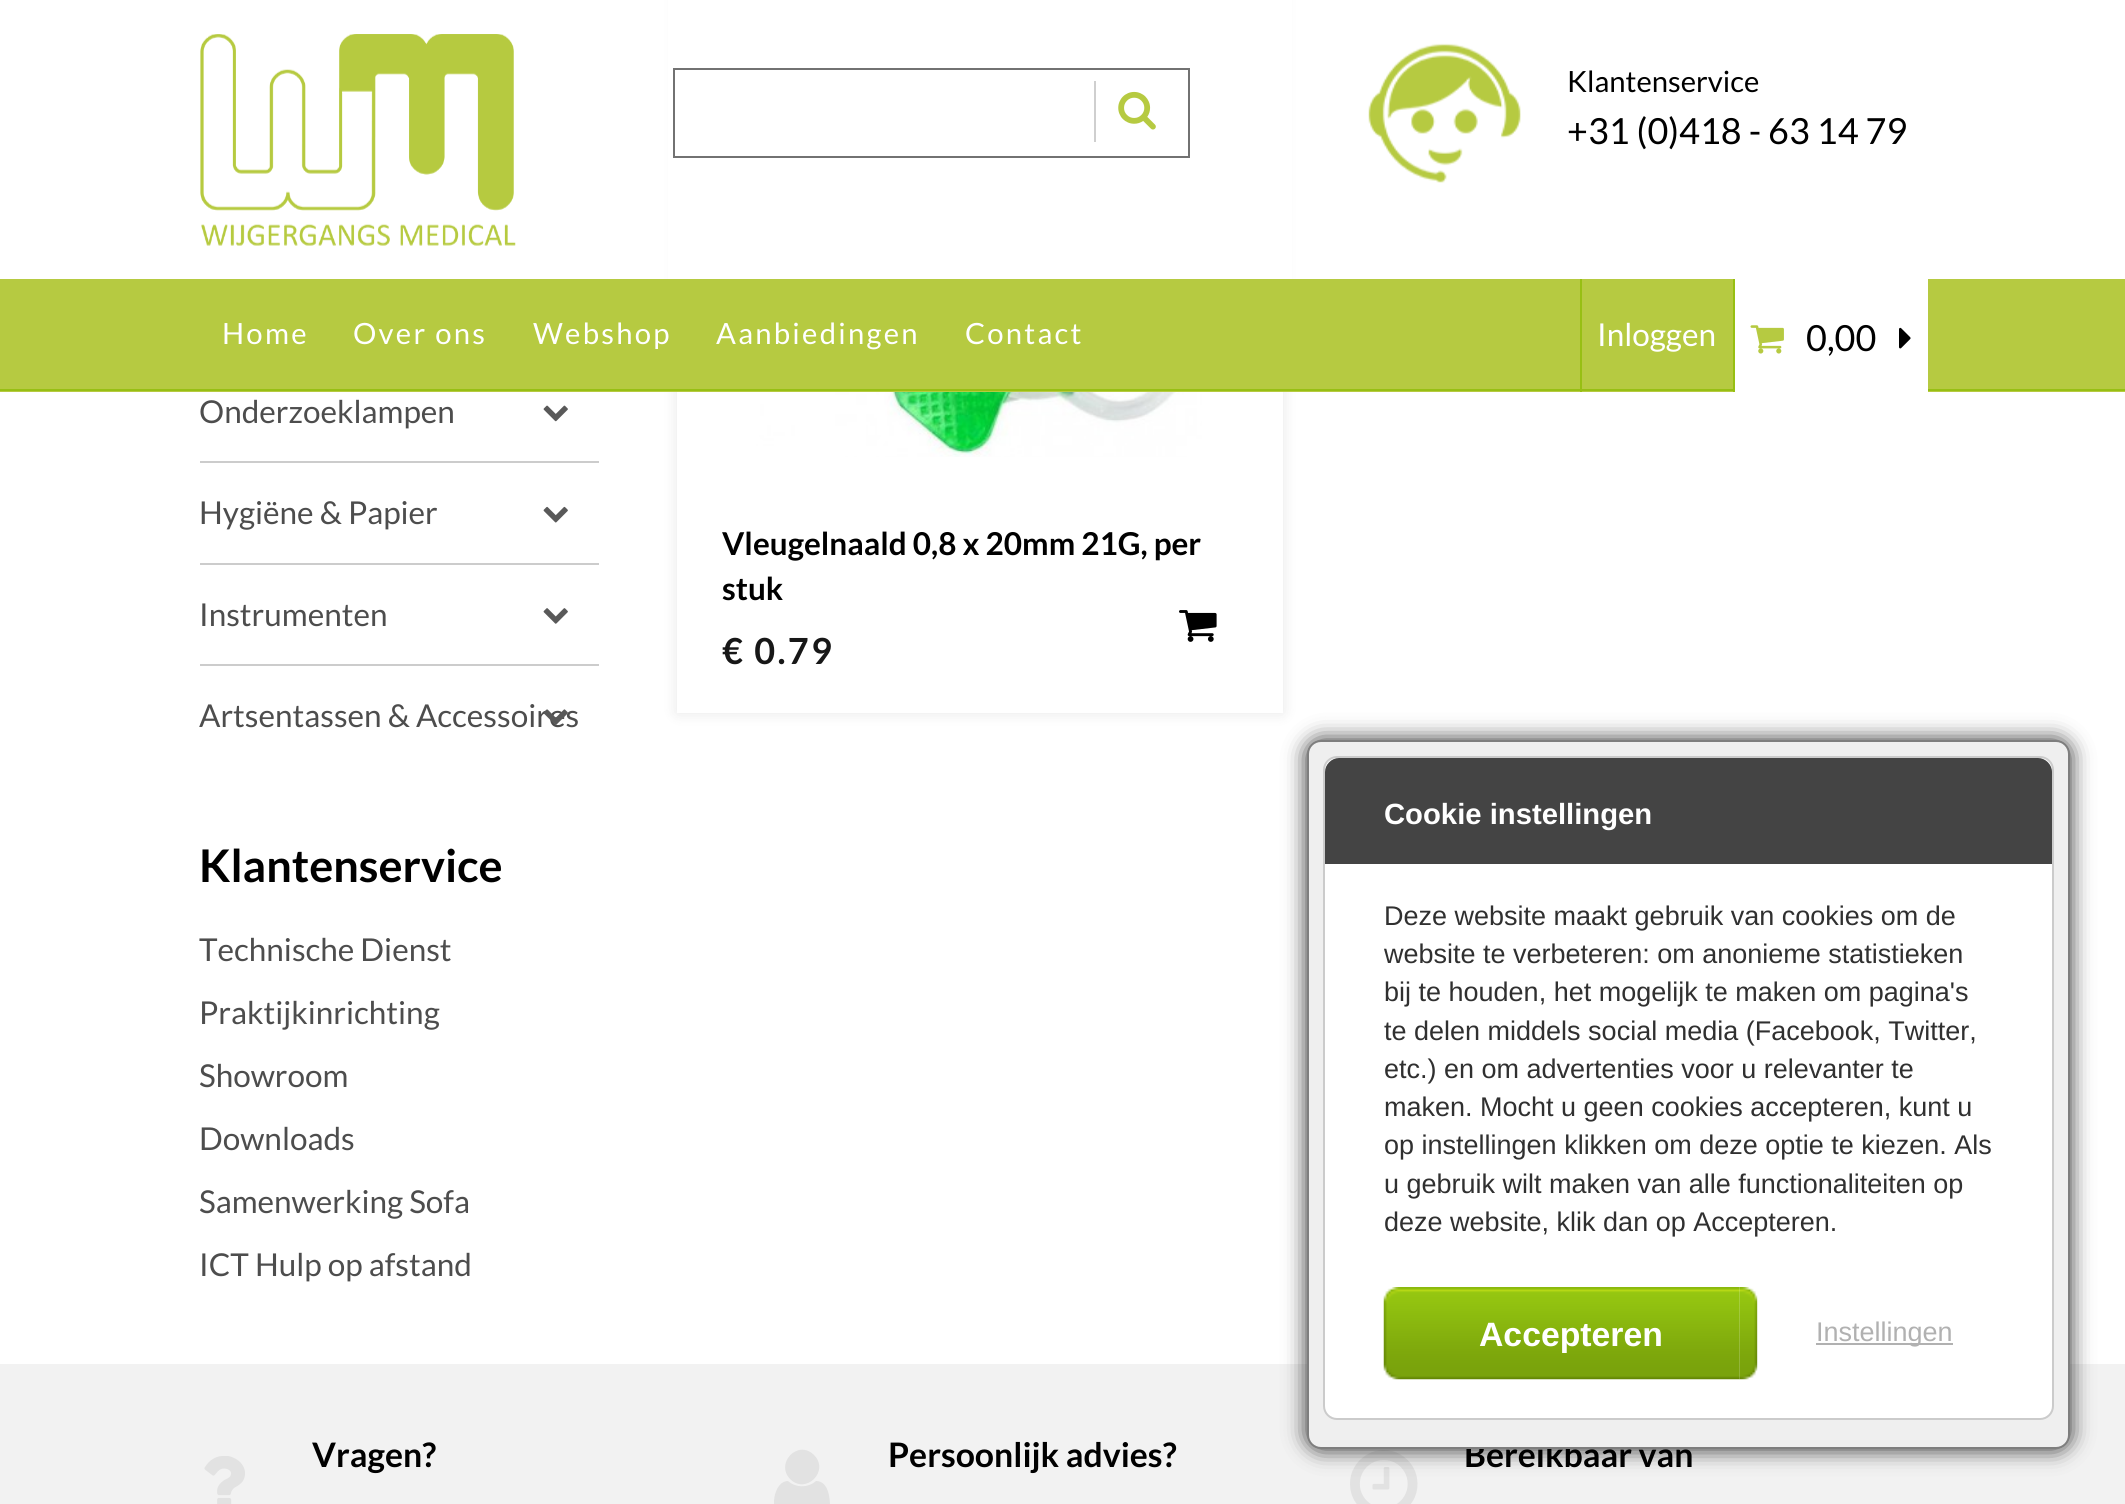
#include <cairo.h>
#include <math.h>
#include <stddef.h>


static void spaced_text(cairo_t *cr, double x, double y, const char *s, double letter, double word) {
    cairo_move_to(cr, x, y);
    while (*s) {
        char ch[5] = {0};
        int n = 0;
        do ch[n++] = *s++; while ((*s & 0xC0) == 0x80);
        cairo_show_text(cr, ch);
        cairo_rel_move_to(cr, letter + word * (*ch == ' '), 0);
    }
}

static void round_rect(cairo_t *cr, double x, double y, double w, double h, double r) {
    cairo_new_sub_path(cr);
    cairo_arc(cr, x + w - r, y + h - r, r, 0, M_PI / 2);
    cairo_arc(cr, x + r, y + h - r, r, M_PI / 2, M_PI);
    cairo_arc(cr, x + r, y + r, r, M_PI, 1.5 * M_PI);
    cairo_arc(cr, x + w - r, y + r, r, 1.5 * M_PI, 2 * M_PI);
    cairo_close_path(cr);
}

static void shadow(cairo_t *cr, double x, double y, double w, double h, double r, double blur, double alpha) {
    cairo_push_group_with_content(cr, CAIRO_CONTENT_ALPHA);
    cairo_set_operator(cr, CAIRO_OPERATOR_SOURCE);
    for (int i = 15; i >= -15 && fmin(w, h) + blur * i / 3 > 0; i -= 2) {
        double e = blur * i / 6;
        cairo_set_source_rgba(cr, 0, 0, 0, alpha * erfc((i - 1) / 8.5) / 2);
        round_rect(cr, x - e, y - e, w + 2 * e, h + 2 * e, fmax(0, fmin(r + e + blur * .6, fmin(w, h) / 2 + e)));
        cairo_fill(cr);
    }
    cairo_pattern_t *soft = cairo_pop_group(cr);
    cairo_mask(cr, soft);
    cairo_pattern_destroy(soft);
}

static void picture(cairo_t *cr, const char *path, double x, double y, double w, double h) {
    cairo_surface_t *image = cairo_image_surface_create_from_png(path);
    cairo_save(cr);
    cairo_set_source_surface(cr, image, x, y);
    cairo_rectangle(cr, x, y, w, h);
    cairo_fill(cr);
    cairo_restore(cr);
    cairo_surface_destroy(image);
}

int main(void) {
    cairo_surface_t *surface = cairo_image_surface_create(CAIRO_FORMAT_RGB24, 2125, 1504);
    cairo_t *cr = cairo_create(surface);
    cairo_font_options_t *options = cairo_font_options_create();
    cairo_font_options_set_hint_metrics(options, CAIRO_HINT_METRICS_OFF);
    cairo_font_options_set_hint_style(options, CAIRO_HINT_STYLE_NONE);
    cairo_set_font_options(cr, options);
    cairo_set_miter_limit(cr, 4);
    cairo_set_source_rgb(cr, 1, 1, 1);
    cairo_paint(cr);
    cairo_save(cr);
    cairo_set_fill_rule(cr, CAIRO_FILL_RULE_EVEN_ODD);
    cairo_new_path(cr);
    cairo_move_to(cr, 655, 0);
    cairo_line_to(cr, 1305, 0);
    cairo_line_to(cr, 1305, 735);
    cairo_line_to(cr, 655, 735);
    cairo_close_path(cr);
    cairo_move_to(cr, 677, -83);
    cairo_line_to(cr, 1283, -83);
    cairo_line_to(cr, 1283, 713);
    cairo_line_to(cr, 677, 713);
    cairo_close_path(cr);
    cairo_clip(cr);
    cairo_set_source_rgb(cr, 0, 0, 0);
    shadow(cr, 677, -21, 606, 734, 0, 7, 0.1);
    cairo_restore(cr);
    cairo_set_source_rgb(cr, 1, 1, 1);
    cairo_rectangle(cr, 668, 0, 624, 279);
    cairo_fill(cr);
    picture(cr, "img1.png", 200, 34, 316, 212);
    cairo_rectangle(cr, 674, 69, 515, 88);
    cairo_set_source_rgb(cr, 0.447, 0.447, 0.447);
    cairo_stroke(cr);
    cairo_set_source_rgb(cr, 0.812, 0.812, 0.812);
    cairo_rectangle(cr, 1094, 81, 2, 61);
    cairo_fill(cr);
    picture(cr, "img2.png", 1118, 91, 38, 39);
    picture(cr, "img3.png", 1368, 43, 153, 140);
    cairo_select_font_face(cr, "Lato", CAIRO_FONT_SLANT_NORMAL, CAIRO_FONT_WEIGHT_NORMAL);
    cairo_set_font_size(cr, 29.25);
    cairo_set_source_rgb(cr, 0, 0, 0);
    cairo_move_to(cr, 1567, 92);
    cairo_show_text(cr, "Klantenservice");
    cairo_set_font_size(cr, 36);
    cairo_move_to(cr, 1567, 144);
    cairo_show_text(cr, "+31 (0)418 - 63 14 79");
    cairo_set_source_rgb(cr, 0.714, 0.792, 0.255);
    cairo_rectangle(cr, 0, 279, 2125, 113);
    cairo_fill(cr);
    cairo_set_source_rgb(cr, 0.592, 0.749, 0.078);
    cairo_rectangle(cr, 0, 389, 2125, 2);
    cairo_fill(cr);
    cairo_set_font_size(cr, 29.25);
    cairo_set_source_rgb(cr, 1, 1, 1);
    spaced_text(cr, 222, 344, "Home", 2.25, 0);
    spaced_text(cr, 353, 344, "Over ons", 2.25, 0);
    spaced_text(cr, 533, 344, "Webshop", 2.25, 0);
    spaced_text(cr, 716, 344, "Aanbiedingen", 2.25, 0);
    spaced_text(cr, 965, 344, "Contact", 2.25, 0);
    cairo_set_source_rgb(cr, 0.592, 0.749, 0.078);
    cairo_rectangle(cr, 1733, 279, 2, 113);
    cairo_fill(cr);
    cairo_rectangle(cr, 1580, 279, 2, 113);
    cairo_fill(cr);
    cairo_set_font_size(cr, 31.5);
    cairo_set_source_rgb(cr, 1, 1, 1);
    cairo_move_to(cr, 1597, 346);
    cairo_show_text(cr, "Inloggen");
    cairo_rectangle(cr, 1735, 279, 193, 113);
    cairo_fill(cr);
    picture(cr, "img4.png", 1750, 325, 34, 29);
    cairo_set_font_size(cr, 36);
    cairo_set_source_rgb(cr, 0, 0, 0);
    cairo_move_to(cr, 1806, 351);
    cairo_show_text(cr, "0,00");
    picture(cr, "img5.png", 1899, 327, 12, 22);
    cairo_set_source_rgb(cr, 0.8, 0.8, 0.8);
    cairo_rectangle(cr, 200, 461, 399, 2);
    cairo_fill(cr);
    cairo_set_font_size(cr, 31.5);
    cairo_set_source_rgb(cr, 0.302, 0.302, 0.302);
    cairo_move_to(cr, 199, 423);
    cairo_show_text(cr, "Onderzoeklampen");
    picture(cr, "img6.png", 543, 405, 25, 17);
    cairo_set_source_rgb(cr, 0.8, 0.8, 0.8);
    cairo_rectangle(cr, 200, 563, 399, 2);
    cairo_fill(cr);
    cairo_set_source_rgb(cr, 0.302, 0.302, 0.302);
    cairo_move_to(cr, 199, 524);
    cairo_show_text(cr, "Hygiëne & Papier");
    picture(cr, "img7.png", 543, 506, 25, 17);
    cairo_set_source_rgb(cr, 0.8, 0.8, 0.8);
    cairo_rectangle(cr, 200, 664, 399, 2);
    cairo_fill(cr);
    cairo_set_source_rgb(cr, 0.302, 0.302, 0.302);
    cairo_move_to(cr, 199, 626);
    cairo_show_text(cr, "Instrumenten");
    picture(cr, "img8.png", 543, 608, 25, 16);
    cairo_move_to(cr, 199, 727);
    cairo_show_text(cr, "Artsentassen & Accessoires");
    picture(cr, "img9.png", 544, 709, 24, 16);
    cairo_select_font_face(cr, "Lato", CAIRO_FONT_SLANT_NORMAL, CAIRO_FONT_WEIGHT_BOLD);
    cairo_set_font_size(cr, 45);
    cairo_set_source_rgb(cr, 0, 0, 0);
    cairo_move_to(cr, 199, 882);
    cairo_show_text(cr, "Klantenservice");
    cairo_select_font_face(cr, "Lato", CAIRO_FONT_SLANT_NORMAL, CAIRO_FONT_WEIGHT_NORMAL);
    cairo_set_font_size(cr, 31.5);
    cairo_set_source_rgb(cr, 0.302, 0.302, 0.302);
    cairo_move_to(cr, 199, 961);
    cairo_show_text(cr, "Technische Dienst");
    cairo_move_to(cr, 199, 1024);
    cairo_show_text(cr, "Praktijkinrichting");
    cairo_move_to(cr, 199, 1087);
    cairo_show_text(cr, "Showroom");
    cairo_move_to(cr, 199, 1150);
    cairo_show_text(cr, "Downloads");
    cairo_move_to(cr, 199, 1213);
    cairo_show_text(cr, "Samenwerking Sofa");
    cairo_move_to(cr, 199, 1276);
    cairo_show_text(cr, "ICT Hulp op afstand");
    picture(cr, "img10.png", 756, 392, 446, 65);
    cairo_select_font_face(cr, "Lato", CAIRO_FONT_SLANT_NORMAL, CAIRO_FONT_WEIGHT_BOLD);
    cairo_set_source_rgb(cr, 0, 0, 0);
    cairo_move_to(cr, 722, 555);
    cairo_show_text(cr, "Vleugelnaald 0,8 x 20mm 21G, per");
    cairo_move_to(cr, 722, 600);
    cairo_show_text(cr, "stuk");
    picture(cr, "img11.png", 1179, 610, 38, 32);
    cairo_set_font_size(cr, 36);
    cairo_set_source_rgb(cr, 0.09, 0.09, 0.09);
    spaced_text(cr, 722, 664, "€ 0.79", 2.25, 0);
    cairo_set_source_rgb(cr, 0.949, 0.949, 0.949);
    cairo_rectangle(cr, 0, 1364, 2125, 140);
    cairo_fill(cr);
    picture(cr, "img15.png", 1350, 1450, 68, 54);
    cairo_set_source_rgb(cr, 0.161, 0.161, 0.161);
    shadow(cr, 1307, 740, 763, 709, 14, 11, 1);
    cairo_set_font_size(cr, 33.75);
    cairo_set_source_rgb(cr, 0, 0, 0);
    cairo_move_to(cr, 1464, 1467);
    cairo_show_text(cr, "Bereikbaar van");
    cairo_set_source_rgb(cr, 0.937, 0.937, 0.937);
    round_rect(cr, 1308, 741, 761, 707, 13);
    cairo_fill_preserve(cr);
    cairo_set_source_rgb(cr, 0.494, 0.494, 0.494);
    cairo_stroke(cr);
    cairo_set_source_rgb(cr, 1, 1, 1);
    round_rect(cr, 1324, 757, 729, 662, 13);
    cairo_fill_preserve(cr);
    cairo_set_source_rgb(cr, 0.796, 0.796, 0.796);
    cairo_stroke(cr);
    cairo_set_source_rgb(cr, 0.267, 0.267, 0.267);
    cairo_new_path(cr);
    cairo_move_to(cr, 1339, 758);
    cairo_line_to(cr, 2038, 758);
    cairo_curve_to(cr, 2045.5, 758, 2052, 764.5, 2052, 772);
    cairo_line_to(cr, 2052, 864);
    cairo_line_to(cr, 1325, 864);
    cairo_line_to(cr, 1325, 772);
    cairo_curve_to(cr, 1325, 764.5, 1331.5, 758, 1339, 758);
    cairo_close_path(cr);
    cairo_fill(cr);
    cairo_select_font_face(cr, "Liberation Sans", CAIRO_FONT_SLANT_NORMAL, CAIRO_FONT_WEIGHT_BOLD);
    cairo_set_font_size(cr, 29.25);
    cairo_set_source_rgb(cr, 1, 1, 1);
    cairo_move_to(cr, 1384, 824);
    cairo_show_text(cr, "Cookie instellingen");
    cairo_select_font_face(cr, "Liberation Sans", CAIRO_FONT_SLANT_NORMAL, CAIRO_FONT_WEIGHT_NORMAL);
    cairo_set_font_size(cr, 27);
    cairo_set_source_rgb(cr, 0.188, 0.188, 0.188);
    cairo_move_to(cr, 1384, 925);
    cairo_show_text(cr, "Deze website maakt gebruik van cookies om de");
    cairo_move_to(cr, 1384, 963);
    cairo_show_text(cr, "website te verbeteren: om anonieme statistieken");
    cairo_move_to(cr, 1384, 1001);
    cairo_show_text(cr, "bij te houden, het mogelijk te maken om pagina's");
    cairo_move_to(cr, 1384, 1040);
    cairo_show_text(cr, "te delen middels social media (Facebook, Twitter,");
    cairo_move_to(cr, 1384, 1078);
    cairo_show_text(cr, "etc.) en om advertenties voor u relevanter te");
    cairo_move_to(cr, 1384, 1116);
    cairo_show_text(cr, "maken. Mocht u geen cookies accepteren, kunt u");
    cairo_move_to(cr, 1384, 1154);
    cairo_show_text(cr, "op instellingen klikken om deze optie te kiezen. Als");
    cairo_move_to(cr, 1384, 1193);
    cairo_show_text(cr, "u gebruik wilt maken van alle functionaliteiten op");
    cairo_move_to(cr, 1384, 1231);
    cairo_show_text(cr, "deze website, klik dan op Accepteren.");
    picture(cr, "img12.png", 1383, 1287, 357, 93);
    picture(cr, "img13.png", 1739, 1287, 19, 93);
    cairo_select_font_face(cr, "Liberation Sans", CAIRO_FONT_SLANT_NORMAL, CAIRO_FONT_WEIGHT_BOLD);
    cairo_set_font_size(cr, 33.75);
    cairo_set_source_rgb(cr, 1, 1, 1);
    cairo_move_to(cr, 1479, 1346);
    cairo_show_text(cr, "Accepteren");
    cairo_set_source_rgb(cr, 0.694, 0.694, 0.694);
    cairo_rectangle(cr, 1816, 1343, 137, 2);
    cairo_fill(cr);
    cairo_select_font_face(cr, "Liberation Sans", CAIRO_FONT_SLANT_NORMAL, CAIRO_FONT_WEIGHT_NORMAL);
    cairo_set_font_size(cr, 27);
    cairo_move_to(cr, 1816, 1341);
    cairo_show_text(cr, "Instellingen");
    picture(cr, "img14.png", 204, 1456, 41, 48);
    cairo_select_font_face(cr, "Lato", CAIRO_FONT_SLANT_NORMAL, CAIRO_FONT_WEIGHT_BOLD);
    cairo_set_font_size(cr, 33.75);
    cairo_set_source_rgb(cr, 0, 0, 0);
    cairo_move_to(cr, 312, 1467);
    cairo_show_text(cr, "Vragen?");
    cairo_set_source_rgb(cr, 0.886, 0.886, 0.886);
    cairo_new_path(cr);
    cairo_move_to(cr, 830, 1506);
    cairo_curve_to(cr, 830, 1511, 828, 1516, 823, 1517);
    cairo_line_to(cr, 790, 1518);
    cairo_line_to(cr, 781, 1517);
    cairo_curve_to(cr, 769, 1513, 773, 1481, 788, 1481);
    cairo_curve_to(cr, 796, 1488, 808, 1488, 816, 1481);
    cairo_curve_to(cr, 828, 1481, 830, 1497, 830, 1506);
    cairo_close_path(cr);
    cairo_move_to(cr, 814, 1455);
    cairo_curve_to(cr, 830, 1471, 806, 1495, 790, 1479);
    cairo_curve_to(cr, 775, 1463, 798, 1439, 814, 1455);
    cairo_close_path(cr);
    cairo_fill(cr);
    cairo_set_source_rgb(cr, 0, 0, 0);
    cairo_move_to(cr, 888, 1467);
    cairo_show_text(cr, "Persoonlijk advies?");
    cairo_surface_write_to_png(surface, "page.png");
    cairo_font_options_destroy(options);
    cairo_destroy(cr);
    cairo_surface_destroy(surface);
    return 0;
}
